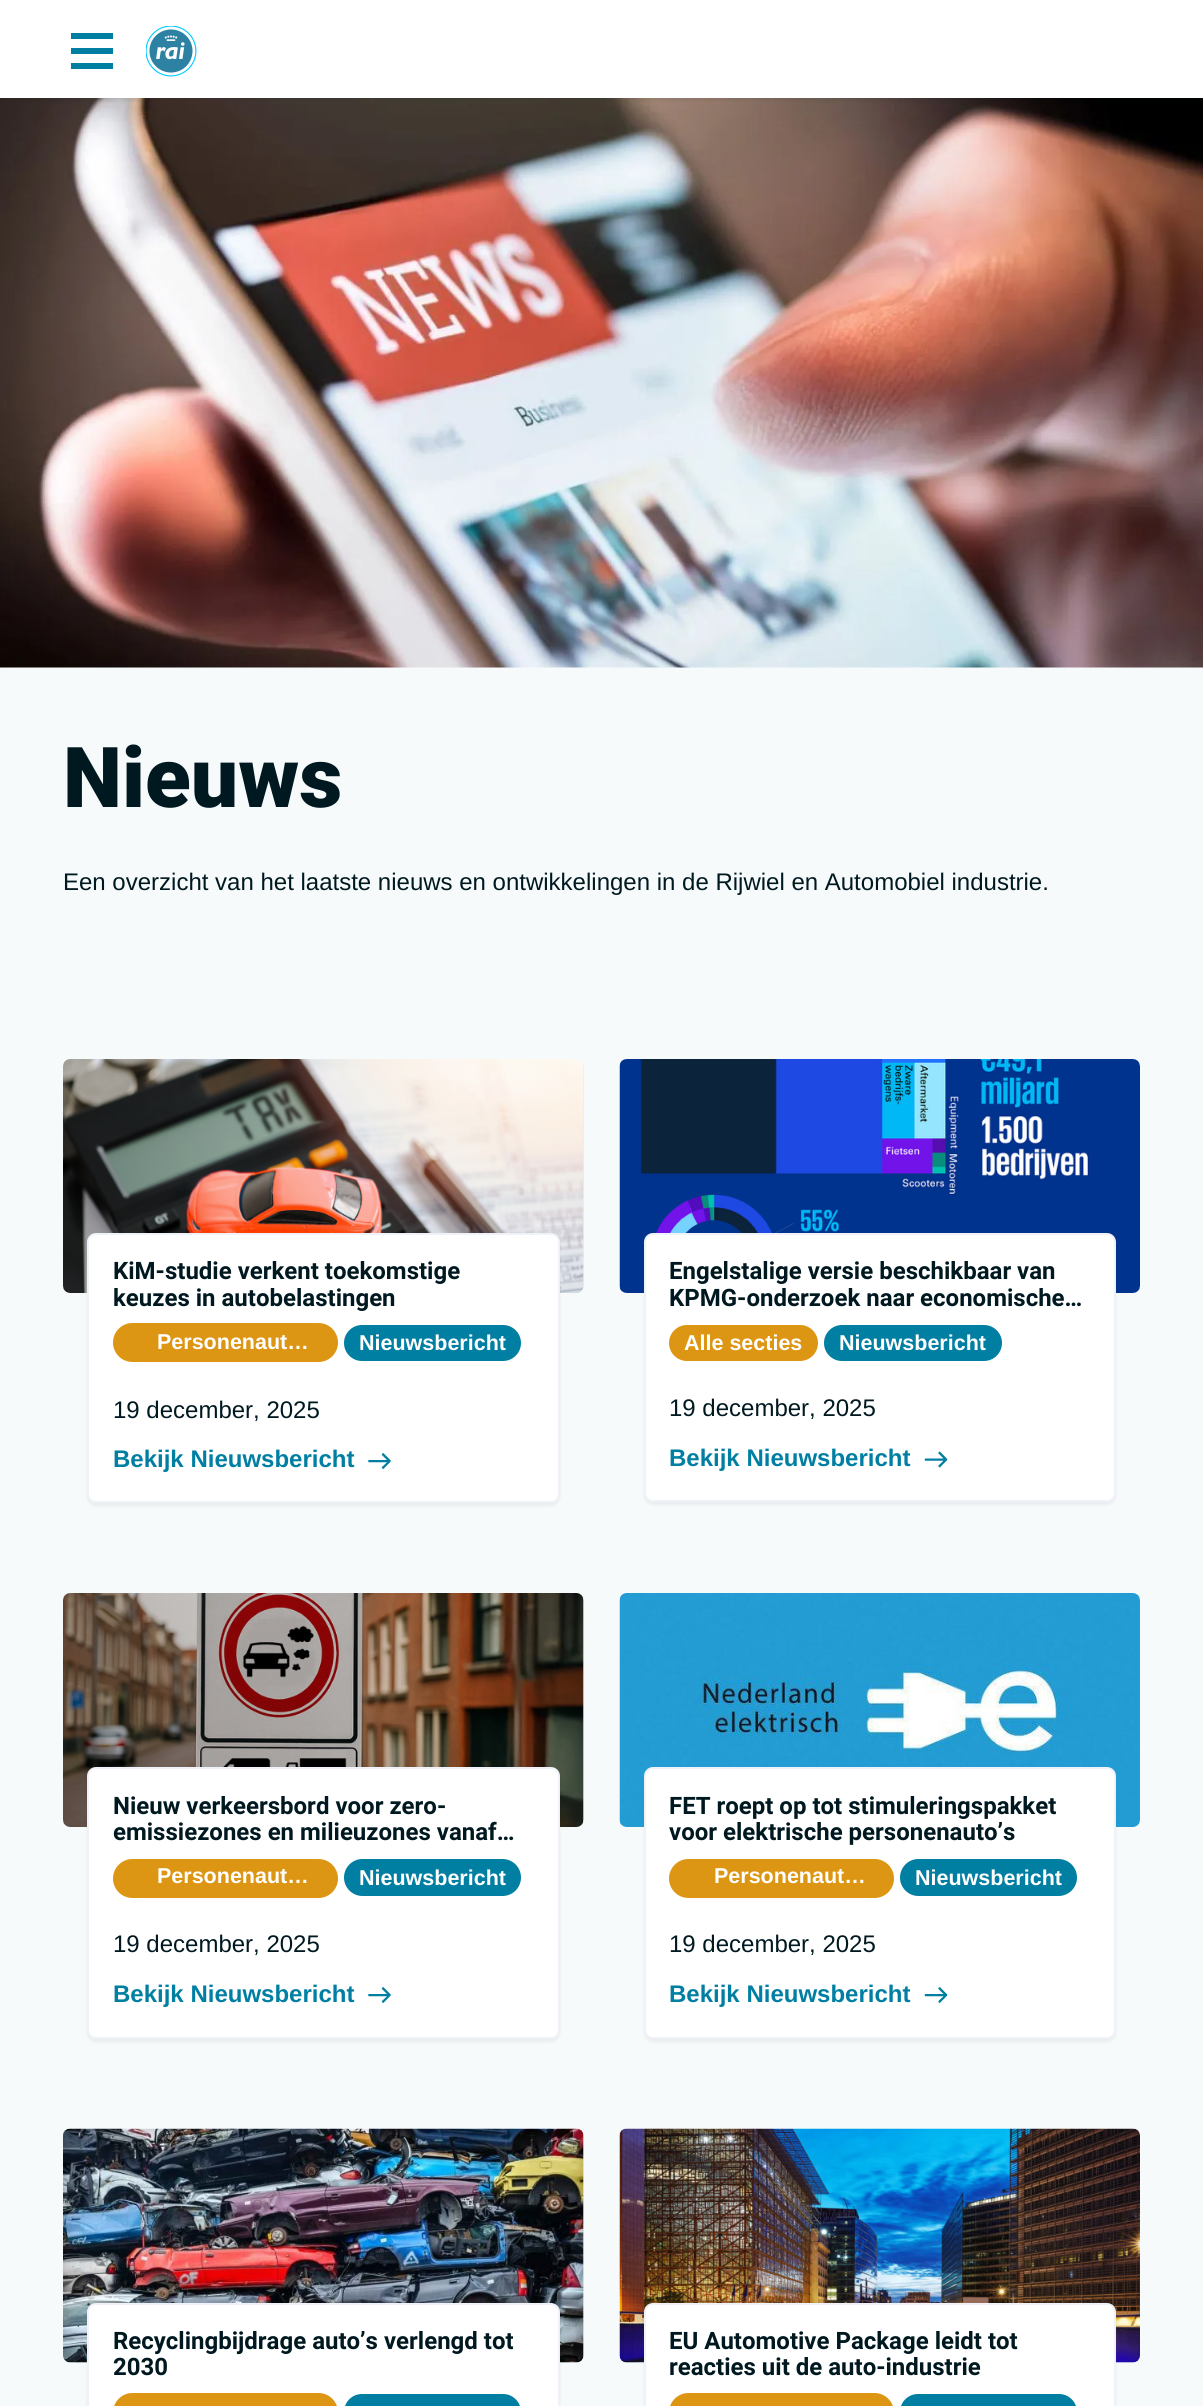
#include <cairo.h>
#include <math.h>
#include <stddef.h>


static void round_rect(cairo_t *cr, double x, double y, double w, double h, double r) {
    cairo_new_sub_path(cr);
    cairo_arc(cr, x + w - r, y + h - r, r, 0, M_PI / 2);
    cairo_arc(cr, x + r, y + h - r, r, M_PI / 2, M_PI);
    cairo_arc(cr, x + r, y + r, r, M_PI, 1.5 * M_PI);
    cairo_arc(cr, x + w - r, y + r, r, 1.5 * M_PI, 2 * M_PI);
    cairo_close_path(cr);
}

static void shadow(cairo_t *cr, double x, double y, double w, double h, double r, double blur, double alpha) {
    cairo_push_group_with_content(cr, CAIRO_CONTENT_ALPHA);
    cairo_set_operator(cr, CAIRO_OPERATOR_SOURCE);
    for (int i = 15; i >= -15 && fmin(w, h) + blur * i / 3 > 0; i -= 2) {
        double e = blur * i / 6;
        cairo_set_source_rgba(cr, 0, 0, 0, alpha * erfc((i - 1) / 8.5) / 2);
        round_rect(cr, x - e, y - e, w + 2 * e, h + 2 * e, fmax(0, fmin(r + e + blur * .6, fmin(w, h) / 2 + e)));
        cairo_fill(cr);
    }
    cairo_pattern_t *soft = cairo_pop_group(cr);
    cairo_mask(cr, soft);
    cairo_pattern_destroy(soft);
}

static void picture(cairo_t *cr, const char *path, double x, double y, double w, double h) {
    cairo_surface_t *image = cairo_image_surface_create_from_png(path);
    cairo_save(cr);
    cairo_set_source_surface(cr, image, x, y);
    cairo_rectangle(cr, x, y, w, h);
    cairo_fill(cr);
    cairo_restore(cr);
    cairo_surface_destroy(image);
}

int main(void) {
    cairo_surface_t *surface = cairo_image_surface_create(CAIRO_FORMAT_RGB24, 1203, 2406);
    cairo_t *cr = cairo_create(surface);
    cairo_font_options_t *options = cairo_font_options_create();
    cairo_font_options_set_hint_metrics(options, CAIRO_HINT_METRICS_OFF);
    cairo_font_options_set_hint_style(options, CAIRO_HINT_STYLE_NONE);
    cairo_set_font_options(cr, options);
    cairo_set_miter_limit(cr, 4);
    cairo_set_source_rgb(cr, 0.965, 0.98, 0.984);
    cairo_paint(cr);
    picture(cr, "img2.png", 0, 98, 1203, 570);
    cairo_set_source_rgb(cr, 0.024, 0.098, 0.125);
    shadow(cr, 0, 3, 1203, 98, 0, 1.5, 0.06);
    cairo_set_source_rgb(cr, 1, 1, 1);
    cairo_rectangle(cr, 0, 0, 1203, 98);
    cairo_fill(cr);
    cairo_set_source_rgb(cr, 0, 0.498, 0.639);
    cairo_rectangle(cr, 71, 33, 42, 6);
    cairo_fill(cr);
    cairo_rectangle(cr, 71, 48, 42, 6);
    cairo_fill(cr);
    cairo_rectangle(cr, 71, 63, 42, 6);
    cairo_fill(cr);
    picture(cr, "img1.png", 146, 26, 51, 51);
    cairo_select_font_face(cr, "Roboto Black", CAIRO_FONT_SLANT_NORMAL, CAIRO_FONT_WEIGHT_NORMAL);
    cairo_set_font_size(cr, 84);
    cairo_set_source_rgb(cr, 0, 0.098, 0.129);
    cairo_move_to(cr, 63, 807);
    cairo_show_text(cr, "Nieuws");
    cairo_select_font_face(cr, "Liberation Sans", CAIRO_FONT_SLANT_NORMAL, CAIRO_FONT_WEIGHT_NORMAL);
    cairo_set_font_size(cr, 24);
    cairo_move_to(cr, 63, 890);
    cairo_show_text(cr, "Een overzicht van het laatste nieuws en ontwikkelingen in de Rijwiel en Automobiel industrie.");
    cairo_set_source_rgb(cr, 0.886, 0.941, 0.961);
    round_rect(cr, 63, 1059, 521, 234, 8);
    cairo_fill(cr);
    picture(cr, "img3.png", 63, 1059, 521, 234);
    cairo_set_source_rgb(cr, 0.024, 0.098, 0.125);
    shadow(cr, 87, 1236, 473, 270, 9, 1.5, 0.06);
    cairo_set_source_rgb(cr, 1, 1, 1);
    round_rect(cr, 88, 1234, 471, 268, 8);
    cairo_fill_preserve(cr);
    cairo_set_source_rgb(cr, 0.937, 0.949, 0.969);
    cairo_stroke(cr);
    cairo_select_font_face(cr, "Roboto", CAIRO_FONT_SLANT_NORMAL, CAIRO_FONT_WEIGHT_BOLD);
    cairo_set_source_rgb(cr, 0, 0.098, 0.129);
    cairo_move_to(cr, 113, 1279);
    cairo_show_text(cr, "KiM-studie verkent toekomstige");
    cairo_move_to(cr, 113, 1306);
    cairo_show_text(cr, "keuzes in autobelastingen");
    cairo_set_source_rgb(cr, 0.867, 0.588, 0.075);
    round_rect(cr, 113, 1323, 225, 39, 19.5);
    cairo_fill(cr);
    cairo_select_font_face(cr, "Liberation Sans", CAIRO_FONT_SLANT_NORMAL, CAIRO_FONT_WEIGHT_BOLD);
    cairo_set_font_size(cr, 21.5);
    cairo_set_source_rgb(cr, 1, 1, 1);
    cairo_move_to(cr, 157, 1349);
    cairo_show_text(cr, "Personenaut…");
    cairo_set_source_rgb(cr, 0, 0.498, 0.639);
    round_rect(cr, 344, 1325, 177, 36, 18);
    cairo_fill(cr);
    cairo_set_source_rgb(cr, 1, 1, 1);
    cairo_move_to(cr, 359, 1350);
    cairo_show_text(cr, "Nieuwsbericht");
    cairo_select_font_face(cr, "Liberation Sans", CAIRO_FONT_SLANT_NORMAL, CAIRO_FONT_WEIGHT_NORMAL);
    cairo_set_font_size(cr, 24);
    cairo_set_source_rgb(cr, 0, 0.098, 0.129);
    cairo_move_to(cr, 113, 1418);
    cairo_show_text(cr, "19 december, 2025");
    cairo_select_font_face(cr, "Liberation Sans", CAIRO_FONT_SLANT_NORMAL, CAIRO_FONT_WEIGHT_BOLD);
    cairo_set_source_rgb(cr, 0, 0.498, 0.639);
    cairo_move_to(cr, 113, 1467);
    cairo_show_text(cr, "Bekijk Nieuwsbericht");
    picture(cr, "img4.png", 368, 1453, 23, 16);
    picture(cr, "img5.png", 619, 1059, 521, 234);
    cairo_set_source_rgb(cr, 0.024, 0.098, 0.125);
    shadow(cr, 644, 1236, 472, 269, 9, 1.5, 0.06);
    cairo_set_source_rgb(cr, 1, 1, 1);
    round_rect(cr, 645, 1234, 470, 267, 8);
    cairo_fill_preserve(cr);
    cairo_set_source_rgb(cr, 0.937, 0.949, 0.969);
    cairo_stroke(cr);
    cairo_select_font_face(cr, "Roboto", CAIRO_FONT_SLANT_NORMAL, CAIRO_FONT_WEIGHT_BOLD);
    cairo_set_source_rgb(cr, 0, 0.098, 0.129);
    cairo_move_to(cr, 669, 1279);
    cairo_show_text(cr, "Engelstalige versie beschikbaar van");
    cairo_move_to(cr, 669, 1306);
    cairo_show_text(cr, "KPMG-onderzoek naar economische…");
    cairo_set_source_rgb(cr, 0.867, 0.588, 0.075);
    round_rect(cr, 669, 1325, 149, 36, 18);
    cairo_fill(cr);
    cairo_select_font_face(cr, "Liberation Sans", CAIRO_FONT_SLANT_NORMAL, CAIRO_FONT_WEIGHT_BOLD);
    cairo_set_font_size(cr, 21.5);
    cairo_set_source_rgb(cr, 1, 1, 1);
    cairo_move_to(cr, 684, 1350);
    cairo_show_text(cr, "Alle secties");
    cairo_set_source_rgb(cr, 0, 0.498, 0.639);
    round_rect(cr, 824, 1325, 178, 36, 18);
    cairo_fill(cr);
    cairo_set_source_rgb(cr, 1, 1, 1);
    cairo_move_to(cr, 839, 1350);
    cairo_show_text(cr, "Nieuwsbericht");
    cairo_select_font_face(cr, "Liberation Sans", CAIRO_FONT_SLANT_NORMAL, CAIRO_FONT_WEIGHT_NORMAL);
    cairo_set_font_size(cr, 24);
    cairo_set_source_rgb(cr, 0, 0.098, 0.129);
    cairo_move_to(cr, 669, 1416);
    cairo_show_text(cr, "19 december, 2025");
    cairo_select_font_face(cr, "Liberation Sans", CAIRO_FONT_SLANT_NORMAL, CAIRO_FONT_WEIGHT_BOLD);
    cairo_set_source_rgb(cr, 0, 0.498, 0.639);
    cairo_move_to(cr, 669, 1466);
    cairo_show_text(cr, "Bekijk Nieuwsbericht");
    picture(cr, "img6.png", 924, 1451, 24, 17);
    cairo_set_source_rgb(cr, 0.886, 0.941, 0.961);
    round_rect(cr, 63, 1593, 521, 234, 8);
    cairo_fill(cr);
    picture(cr, "img7.png", 63, 1593, 521, 234);
    cairo_set_source_rgb(cr, 0.024, 0.098, 0.125);
    shadow(cr, 87, 1770, 473, 272, 9, 1.5, 0.06);
    cairo_set_source_rgb(cr, 1, 1, 1);
    round_rect(cr, 88, 1768, 471, 270, 8);
    cairo_fill_preserve(cr);
    cairo_set_source_rgb(cr, 0.937, 0.949, 0.969);
    cairo_stroke(cr);
    cairo_select_font_face(cr, "Roboto", CAIRO_FONT_SLANT_NORMAL, CAIRO_FONT_WEIGHT_BOLD);
    cairo_set_source_rgb(cr, 0, 0.098, 0.129);
    cairo_move_to(cr, 113, 1814);
    cairo_show_text(cr, "Nieuw verkeersbord voor zero-");
    cairo_move_to(cr, 113, 1840);
    cairo_show_text(cr, "emissiezones en milieuzones vanaf…");
    cairo_set_source_rgb(cr, 0.867, 0.588, 0.075);
    round_rect(cr, 113, 1859, 225, 39, 19.5);
    cairo_fill(cr);
    cairo_select_font_face(cr, "Liberation Sans", CAIRO_FONT_SLANT_NORMAL, CAIRO_FONT_WEIGHT_BOLD);
    cairo_set_font_size(cr, 21.5);
    cairo_set_source_rgb(cr, 1, 1, 1);
    cairo_move_to(cr, 157, 1883);
    cairo_show_text(cr, "Personenaut…");
    cairo_set_source_rgb(cr, 0, 0.498, 0.639);
    round_rect(cr, 344, 1859, 177, 37, 18.5);
    cairo_fill(cr);
    cairo_set_source_rgb(cr, 1, 1, 1);
    cairo_move_to(cr, 359, 1885);
    cairo_show_text(cr, "Nieuwsbericht");
    cairo_select_font_face(cr, "Liberation Sans", CAIRO_FONT_SLANT_NORMAL, CAIRO_FONT_WEIGHT_NORMAL);
    cairo_set_font_size(cr, 24);
    cairo_set_source_rgb(cr, 0, 0.098, 0.129);
    cairo_move_to(cr, 113, 1952);
    cairo_show_text(cr, "19 december, 2025");
    cairo_select_font_face(cr, "Liberation Sans", CAIRO_FONT_SLANT_NORMAL, CAIRO_FONT_WEIGHT_BOLD);
    cairo_set_source_rgb(cr, 0, 0.498, 0.639);
    cairo_move_to(cr, 113, 2002);
    cairo_show_text(cr, "Bekijk Nieuwsbericht");
    picture(cr, "img4.png", 368, 1987, 23, 16);
    picture(cr, "img8.png", 619, 1593, 521, 234);
    cairo_set_source_rgb(cr, 0.024, 0.098, 0.125);
    shadow(cr, 644, 1770, 472, 272, 9, 1.5, 0.06);
    cairo_set_source_rgb(cr, 1, 1, 1);
    round_rect(cr, 645, 1768, 470, 270, 8);
    cairo_fill_preserve(cr);
    cairo_set_source_rgb(cr, 0.937, 0.949, 0.969);
    cairo_stroke(cr);
    cairo_select_font_face(cr, "Roboto", CAIRO_FONT_SLANT_NORMAL, CAIRO_FONT_WEIGHT_BOLD);
    cairo_set_source_rgb(cr, 0, 0.098, 0.129);
    cairo_move_to(cr, 669, 1814);
    cairo_show_text(cr, "FET roept op tot stimuleringspakket");
    cairo_move_to(cr, 669, 1840);
    cairo_show_text(cr, "voor elektrische personenauto’s");
    cairo_set_source_rgb(cr, 0.867, 0.588, 0.075);
    round_rect(cr, 669, 1859, 225, 39, 19.5);
    cairo_fill(cr);
    cairo_select_font_face(cr, "Liberation Sans", CAIRO_FONT_SLANT_NORMAL, CAIRO_FONT_WEIGHT_BOLD);
    cairo_set_font_size(cr, 21.5);
    cairo_set_source_rgb(cr, 1, 1, 1);
    cairo_move_to(cr, 714, 1883);
    cairo_show_text(cr, "Personenaut…");
    cairo_set_source_rgb(cr, 0, 0.498, 0.639);
    round_rect(cr, 900, 1859, 177, 37, 18.5);
    cairo_fill(cr);
    cairo_set_source_rgb(cr, 1, 1, 1);
    cairo_move_to(cr, 915, 1885);
    cairo_show_text(cr, "Nieuwsbericht");
    cairo_select_font_face(cr, "Liberation Sans", CAIRO_FONT_SLANT_NORMAL, CAIRO_FONT_WEIGHT_NORMAL);
    cairo_set_font_size(cr, 24);
    cairo_set_source_rgb(cr, 0, 0.098, 0.129);
    cairo_move_to(cr, 669, 1952);
    cairo_show_text(cr, "19 december, 2025");
    cairo_select_font_face(cr, "Liberation Sans", CAIRO_FONT_SLANT_NORMAL, CAIRO_FONT_WEIGHT_BOLD);
    cairo_set_source_rgb(cr, 0, 0.498, 0.639);
    cairo_move_to(cr, 669, 2002);
    cairo_show_text(cr, "Bekijk Nieuwsbericht");
    picture(cr, "img9.png", 924, 1987, 24, 16);
    cairo_set_source_rgb(cr, 0.886, 0.941, 0.961);
    round_rect(cr, 63, 2129, 521, 234, 8);
    cairo_fill(cr);
    picture(cr, "img10.png", 63, 2128, 521, 235);
    cairo_set_source_rgb(cr, 0.024, 0.098, 0.125);
    shadow(cr, 87, 2306, 473, 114, 9, 1.5, 0.06);
    cairo_set_source_rgb(cr, 1, 1, 1);
    round_rect(cr, 88, 2304, 471, 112, 8);
    cairo_fill_preserve(cr);
    cairo_set_source_rgb(cr, 0.937, 0.949, 0.969);
    cairo_stroke(cr);
    cairo_select_font_face(cr, "Roboto", CAIRO_FONT_SLANT_NORMAL, CAIRO_FONT_WEIGHT_BOLD);
    cairo_set_source_rgb(cr, 0, 0.098, 0.129);
    cairo_move_to(cr, 113, 2349);
    cairo_show_text(cr, "Recyclingbijdrage auto’s verlengd tot");
    cairo_move_to(cr, 113, 2375);
    cairo_show_text(cr, "2030");
    cairo_set_source_rgb(cr, 0.867, 0.588, 0.075);
    round_rect(cr, 113, 2393, 225, 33, 19.5);
    cairo_fill(cr);
    cairo_set_source_rgb(cr, 0, 0.498, 0.639);
    round_rect(cr, 344, 2394, 177, 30, 18);
    cairo_fill(cr);
    cairo_set_source_rgb(cr, 0.886, 0.941, 0.961);
    round_rect(cr, 620, 2129, 520, 234, 8);
    cairo_fill(cr);
    picture(cr, "img11.png", 619, 2128, 521, 235);
    cairo_set_source_rgb(cr, 0.024, 0.098, 0.125);
    shadow(cr, 644, 2306, 472, 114, 9, 1.5, 0.06);
    cairo_set_source_rgb(cr, 1, 1, 1);
    round_rect(cr, 645, 2304, 470, 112, 8);
    cairo_fill_preserve(cr);
    cairo_set_source_rgb(cr, 0.937, 0.949, 0.969);
    cairo_stroke(cr);
    cairo_set_source_rgb(cr, 0, 0.098, 0.129);
    cairo_move_to(cr, 669, 2349);
    cairo_show_text(cr, "EU Automotive Package leidt tot");
    cairo_move_to(cr, 669, 2375);
    cairo_show_text(cr, "reacties uit de auto-industrie");
    cairo_set_source_rgb(cr, 0.867, 0.588, 0.075);
    round_rect(cr, 669, 2393, 225, 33, 19.5);
    cairo_fill(cr);
    cairo_set_source_rgb(cr, 0, 0.498, 0.639);
    round_rect(cr, 900, 2394, 177, 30, 18);
    cairo_fill(cr);
    cairo_surface_write_to_png(surface, "page.png");
    cairo_font_options_destroy(options);
    cairo_destroy(cr);
    cairo_surface_destroy(surface);
    return 0;
}
